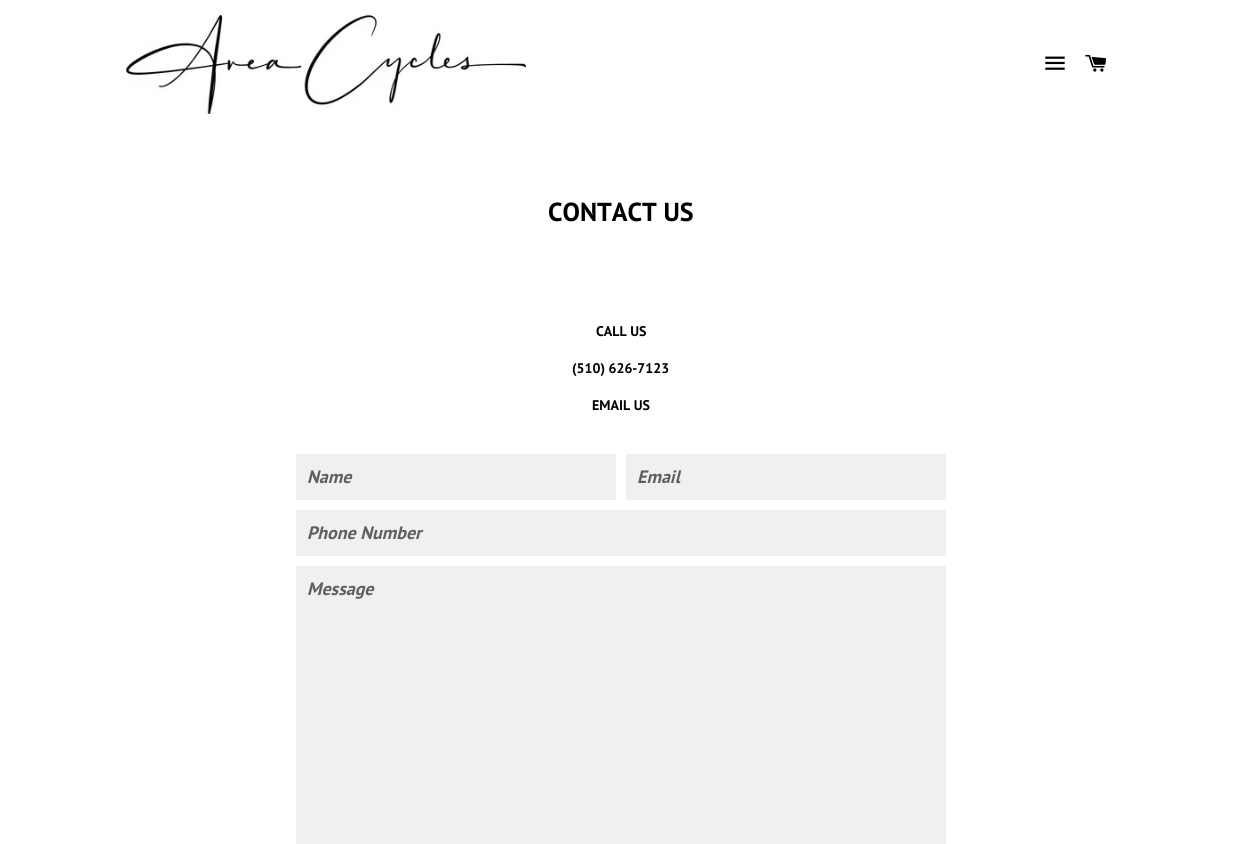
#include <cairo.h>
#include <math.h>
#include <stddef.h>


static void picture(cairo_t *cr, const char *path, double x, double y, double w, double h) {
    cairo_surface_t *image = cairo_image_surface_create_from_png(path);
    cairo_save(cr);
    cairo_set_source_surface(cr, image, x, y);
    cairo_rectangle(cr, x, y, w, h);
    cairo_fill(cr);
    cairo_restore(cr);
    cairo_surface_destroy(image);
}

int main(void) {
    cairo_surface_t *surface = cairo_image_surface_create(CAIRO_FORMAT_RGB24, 1242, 844);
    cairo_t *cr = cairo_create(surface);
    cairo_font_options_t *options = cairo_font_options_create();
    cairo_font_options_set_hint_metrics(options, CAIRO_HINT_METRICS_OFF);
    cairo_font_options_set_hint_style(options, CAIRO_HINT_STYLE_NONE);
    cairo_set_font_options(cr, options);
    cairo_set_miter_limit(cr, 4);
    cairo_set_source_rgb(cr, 1, 1, 1);
    cairo_paint(cr);
    picture(cr, "img1.png", 126, 15, 400, 99);
    picture(cr, "img2.png", 1045, 56, 20, 14);
    picture(cr, "img3.png", 1085, 54, 21, 18);
    cairo_select_font_face(cr, "PT Sans", CAIRO_FONT_SLANT_NORMAL, CAIRO_FONT_WEIGHT_BOLD);
    cairo_set_font_size(cr, 26);
    cairo_set_source_rgb(cr, 0, 0, 0);
    cairo_move_to(cr, 548, 221);
    cairo_show_text(cr, "CONTACT US");
    cairo_set_font_size(cr, 14);
    cairo_move_to(cr, 596, 336);
    cairo_show_text(cr, "CALL US");
    cairo_move_to(cr, 572, 373);
    cairo_show_text(cr, "(510) 626-7123");
    cairo_move_to(cr, 592, 410);
    cairo_show_text(cr, "EMAIL US");
    cairo_set_source_rgb(cr, 0.941, 0.941, 0.941);
    cairo_rectangle(cr, 296, 454, 320, 46);
    cairo_fill(cr);
    cairo_select_font_face(cr, "PT Sans", CAIRO_FONT_SLANT_ITALIC, CAIRO_FONT_WEIGHT_BOLD);
    cairo_set_font_size(cr, 18);
    cairo_set_source_rgb(cr, 0.376, 0.376, 0.376);
    cairo_move_to(cr, 307, 483);
    cairo_show_text(cr, "Name");
    cairo_set_source_rgb(cr, 0.941, 0.941, 0.941);
    cairo_rectangle(cr, 626, 454, 320, 46);
    cairo_fill(cr);
    cairo_set_source_rgb(cr, 0.376, 0.376, 0.376);
    cairo_move_to(cr, 637, 483);
    cairo_show_text(cr, "Email");
    cairo_set_source_rgb(cr, 0.941, 0.941, 0.941);
    cairo_rectangle(cr, 296, 510, 650, 46);
    cairo_fill(cr);
    cairo_set_source_rgb(cr, 0.376, 0.376, 0.376);
    cairo_move_to(cr, 307, 539);
    cairo_show_text(cr, "Phone Number");
    cairo_set_source_rgb(cr, 0.941, 0.941, 0.941);
    cairo_rectangle(cr, 296, 566, 650, 278);
    cairo_fill(cr);
    cairo_set_source_rgb(cr, 0.376, 0.376, 0.376);
    cairo_move_to(cr, 307, 595);
    cairo_show_text(cr, "Message");
    cairo_surface_write_to_png(surface, "page.png");
    cairo_font_options_destroy(options);
    cairo_destroy(cr);
    cairo_surface_destroy(surface);
    return 0;
}
